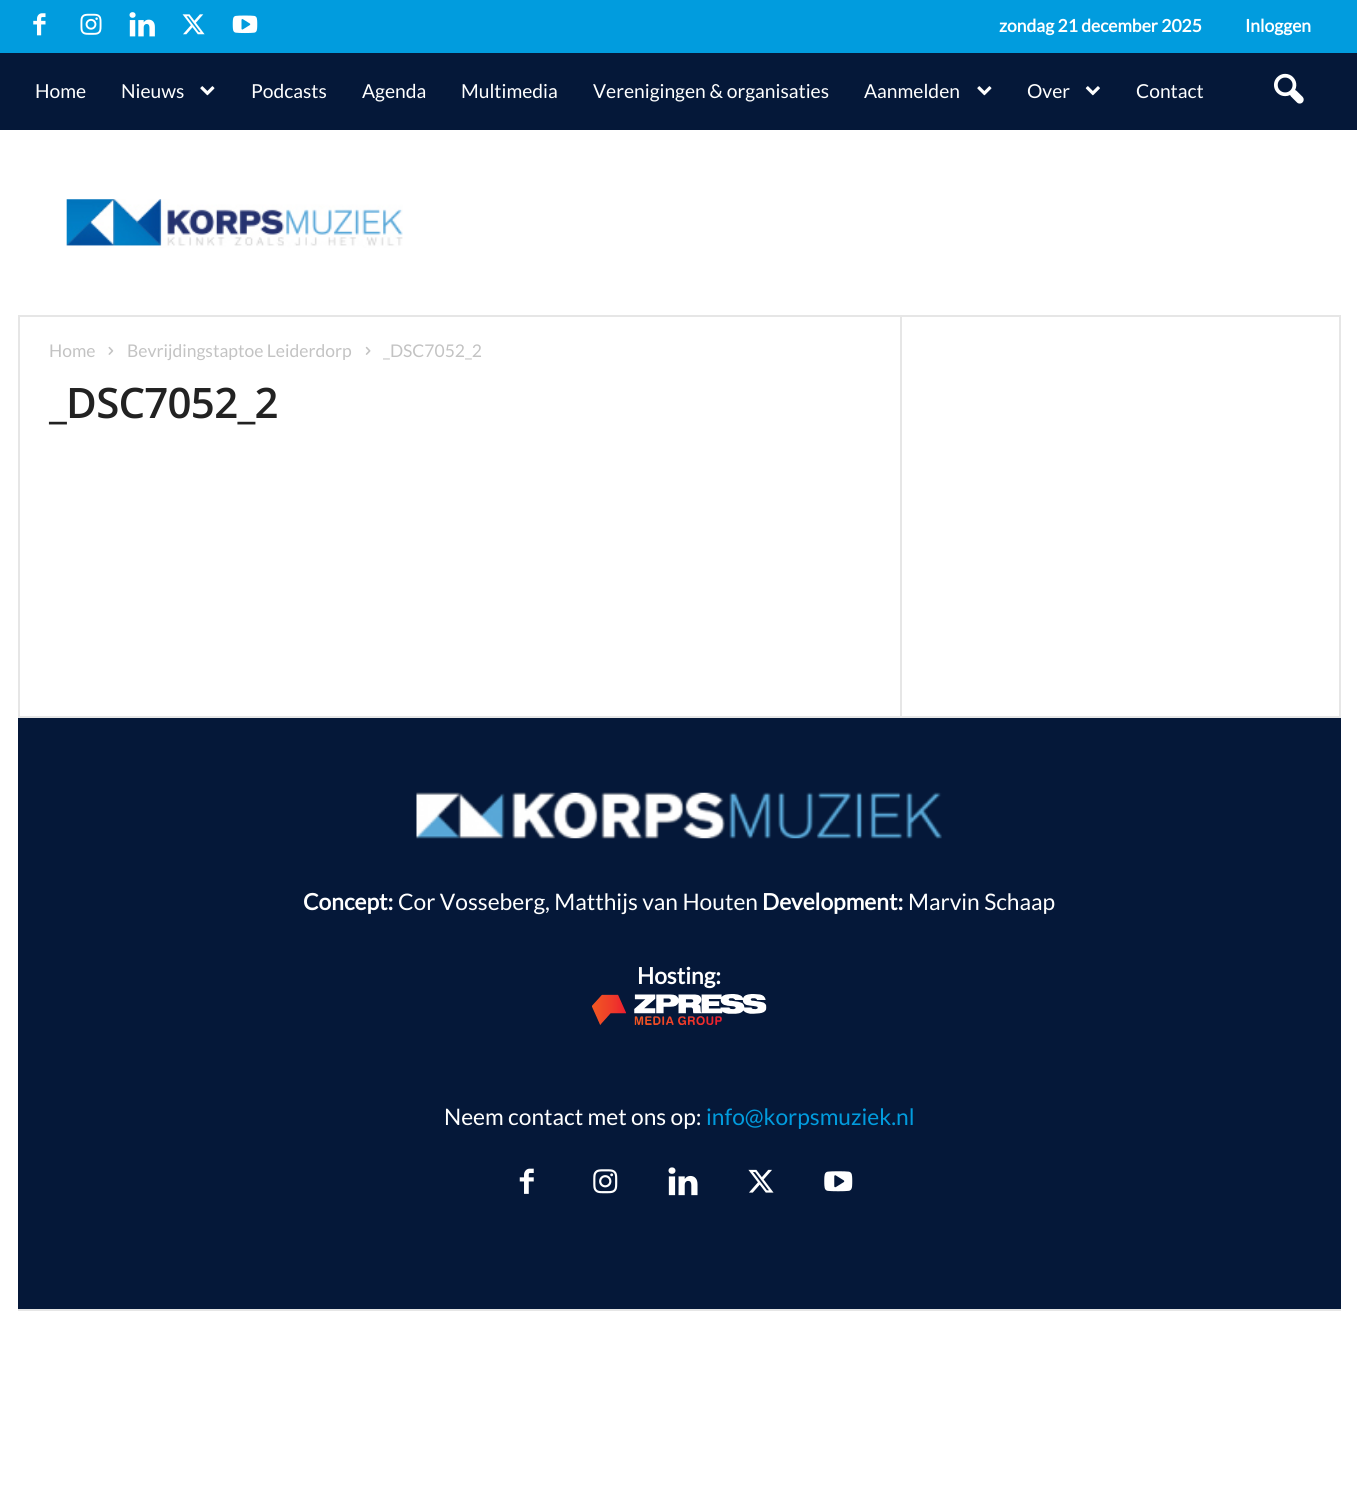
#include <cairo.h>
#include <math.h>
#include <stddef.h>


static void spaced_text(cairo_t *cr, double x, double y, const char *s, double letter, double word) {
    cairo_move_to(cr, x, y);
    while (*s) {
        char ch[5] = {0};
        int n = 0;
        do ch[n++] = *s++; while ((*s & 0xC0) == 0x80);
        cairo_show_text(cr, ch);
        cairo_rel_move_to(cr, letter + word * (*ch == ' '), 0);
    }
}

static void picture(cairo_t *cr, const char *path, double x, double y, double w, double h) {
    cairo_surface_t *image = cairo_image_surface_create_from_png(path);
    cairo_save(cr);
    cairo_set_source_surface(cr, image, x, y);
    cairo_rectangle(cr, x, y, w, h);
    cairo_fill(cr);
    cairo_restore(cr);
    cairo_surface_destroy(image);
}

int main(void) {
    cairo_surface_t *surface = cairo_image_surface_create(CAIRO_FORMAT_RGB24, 1357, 1497);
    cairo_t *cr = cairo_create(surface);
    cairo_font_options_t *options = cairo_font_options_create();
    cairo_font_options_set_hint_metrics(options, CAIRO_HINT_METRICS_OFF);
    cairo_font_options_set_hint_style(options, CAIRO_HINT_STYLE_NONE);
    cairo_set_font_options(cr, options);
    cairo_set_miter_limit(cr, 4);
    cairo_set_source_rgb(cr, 1, 1, 1);
    cairo_paint(cr);
    cairo_set_source_rgb(cr, 0.004, 0.612, 0.871);
    cairo_rectangle(cr, 0, 0, 1357, 53);
    cairo_fill(cr);
    picture(cr, "img1.png", 33, 13, 13, 23);
    picture(cr, "img2.png", 80, 13, 22, 22);
    picture(cr, "img3.png", 129, 12, 26, 25);
    picture(cr, "img4.png", 182, 14, 23, 21);
    picture(cr, "img5.png", 232, 15, 26, 19);
    cairo_select_font_face(cr, "Lato", CAIRO_FONT_SLANT_NORMAL, CAIRO_FONT_WEIGHT_BOLD);
    cairo_set_font_size(cr, 17.5);
    cairo_set_source_rgb(cr, 1, 1, 1);
    cairo_move_to(cr, 999, 32);
    cairo_show_text(cr, "zondag 21 december 2025");
    cairo_move_to(cr, 1245, 32);
    cairo_show_text(cr, "Inloggen");
    cairo_set_source_rgb(cr, 0.02, 0.094, 0.224);
    cairo_rectangle(cr, 0, 53, 1357, 77);
    cairo_fill(cr);
    cairo_select_font_face(cr, "Lato", CAIRO_FONT_SLANT_NORMAL, CAIRO_FONT_WEIGHT_NORMAL);
    cairo_set_font_size(cr, 19.25);
    cairo_set_source_rgb(cr, 1, 1, 1);
    cairo_move_to(cr, 35, 98);
    cairo_show_text(cr, "Home");
    cairo_move_to(cr, 121, 98);
    cairo_show_text(cr, "Nieuws");
    picture(cr, "img6.png", 200, 86, 15, 10);
    cairo_move_to(cr, 251, 98);
    cairo_show_text(cr, "Podcasts");
    cairo_move_to(cr, 362, 98);
    cairo_show_text(cr, "Agenda");
    cairo_move_to(cr, 461, 98);
    cairo_show_text(cr, "Multimedia");
    cairo_move_to(cr, 593, 98);
    cairo_show_text(cr, "Verenigingen & organisaties");
    cairo_move_to(cr, 864, 98);
    cairo_show_text(cr, "Aanmelden");
    picture(cr, "img6.png", 977, 86, 15, 10);
    cairo_move_to(cr, 1027, 98);
    cairo_show_text(cr, "Over");
    picture(cr, "img7.png", 1085, 86, 15, 10);
    cairo_move_to(cr, 1136, 98);
    cairo_show_text(cr, "Contact");
    picture(cr, "img8.png", 1274, 73, 30, 31);
    cairo_set_source_rgb(cr, 0.902, 0.902, 0.902);
    cairo_rectangle(cr, 18, 315, 1323, 2);
    cairo_fill(cr);
    picture(cr, "img9.png", 66, 199, 337, 49);
    cairo_rectangle(cr, 18, 716, 1323, 2);
    cairo_fill(cr);
    cairo_rectangle(cr, 18, 317, 2, 399);
    cairo_fill(cr);
    cairo_set_font_size(cr, 17.5);
    cairo_set_source_rgb(cr, 0.765, 0.765, 0.765);
    cairo_move_to(cr, 49, 357);
    cairo_show_text(cr, "Home");
    picture(cr, "img10.png", 108, 346, 6, 9);
    cairo_move_to(cr, 127, 357);
    cairo_show_text(cr, "Bevrijdingstaptoe Leiderdorp");
    picture(cr, "img11.png", 365, 346, 6, 9);
    cairo_move_to(cr, 383, 357);
    cairo_show_text(cr, "_DSC7052_2");
    cairo_select_font_face(cr, "Open Sans SemiBold", CAIRO_FONT_SLANT_NORMAL, CAIRO_FONT_WEIGHT_NORMAL);
    cairo_set_font_size(cr, 42);
    cairo_set_source_rgb(cr, 0.133, 0.133, 0.133);
    spaced_text(cr, 49, 418, "_DSC7052_2", -0.75, 0);
    cairo_set_source_rgb(cr, 0.902, 0.902, 0.902);
    cairo_rectangle(cr, 900, 317, 2, 399);
    cairo_fill(cr);
    cairo_rectangle(cr, 1339, 317, 2, 399);
    cairo_fill(cr);
    cairo_set_source_rgb(cr, 0.02, 0.094, 0.224);
    cairo_rectangle(cr, 18, 718, 1323, 591);
    cairo_fill(cr);
    picture(cr, "img12.png", 416, 792, 526, 47);
    cairo_select_font_face(cr, "Lato", CAIRO_FONT_SLANT_NORMAL, CAIRO_FONT_WEIGHT_BOLD);
    cairo_set_font_size(cr, 22.75);
    cairo_set_source_rgb(cr, 1, 1, 1);
    cairo_move_to(cr, 303, 910);
    cairo_show_text(cr, "Concept:");
    cairo_select_font_face(cr, "Lato", CAIRO_FONT_SLANT_NORMAL, CAIRO_FONT_WEIGHT_NORMAL);
    cairo_move_to(cr, 398, 910);
    cairo_show_text(cr, "Cor Vosseberg, Matthijs van Houten");
    cairo_select_font_face(cr, "Lato", CAIRO_FONT_SLANT_NORMAL, CAIRO_FONT_WEIGHT_BOLD);
    cairo_move_to(cr, 762, 910);
    cairo_show_text(cr, "Development:");
    cairo_select_font_face(cr, "Lato", CAIRO_FONT_SLANT_NORMAL, CAIRO_FONT_WEIGHT_NORMAL);
    cairo_move_to(cr, 908, 910);
    cairo_show_text(cr, "Marvin Schaap");
    cairo_select_font_face(cr, "Lato", CAIRO_FONT_SLANT_NORMAL, CAIRO_FONT_WEIGHT_BOLD);
    cairo_move_to(cr, 637, 984);
    cairo_show_text(cr, "Hosting:");
    picture(cr, "img13.png", 592, 994, 175, 31);
    cairo_select_font_face(cr, "Lato", CAIRO_FONT_SLANT_NORMAL, CAIRO_FONT_WEIGHT_NORMAL);
    cairo_move_to(cr, 444, 1125);
    cairo_show_text(cr, "Neem contact met ons op:");
    cairo_set_source_rgb(cr, 0.004, 0.612, 0.871);
    cairo_move_to(cr, 706, 1125);
    cairo_show_text(cr, "info@korpsmuziek.nl");
    picture(cr, "img14.png", 519, 1168, 15, 26);
    picture(cr, "img15.png", 593, 1169, 25, 25);
    picture(cr, "img16.png", 668, 1167, 30, 29);
    picture(cr, "img17.png", 748, 1169, 26, 24);
    picture(cr, "img18.png", 824, 1171, 29, 21);
    cairo_set_source_rgb(cr, 0.902, 0.902, 0.902);
    cairo_rectangle(cr, 18, 1309, 1323, 2);
    cairo_fill(cr);
    cairo_surface_write_to_png(surface, "page.png");
    cairo_font_options_destroy(options);
    cairo_destroy(cr);
    cairo_surface_destroy(surface);
    return 0;
}
